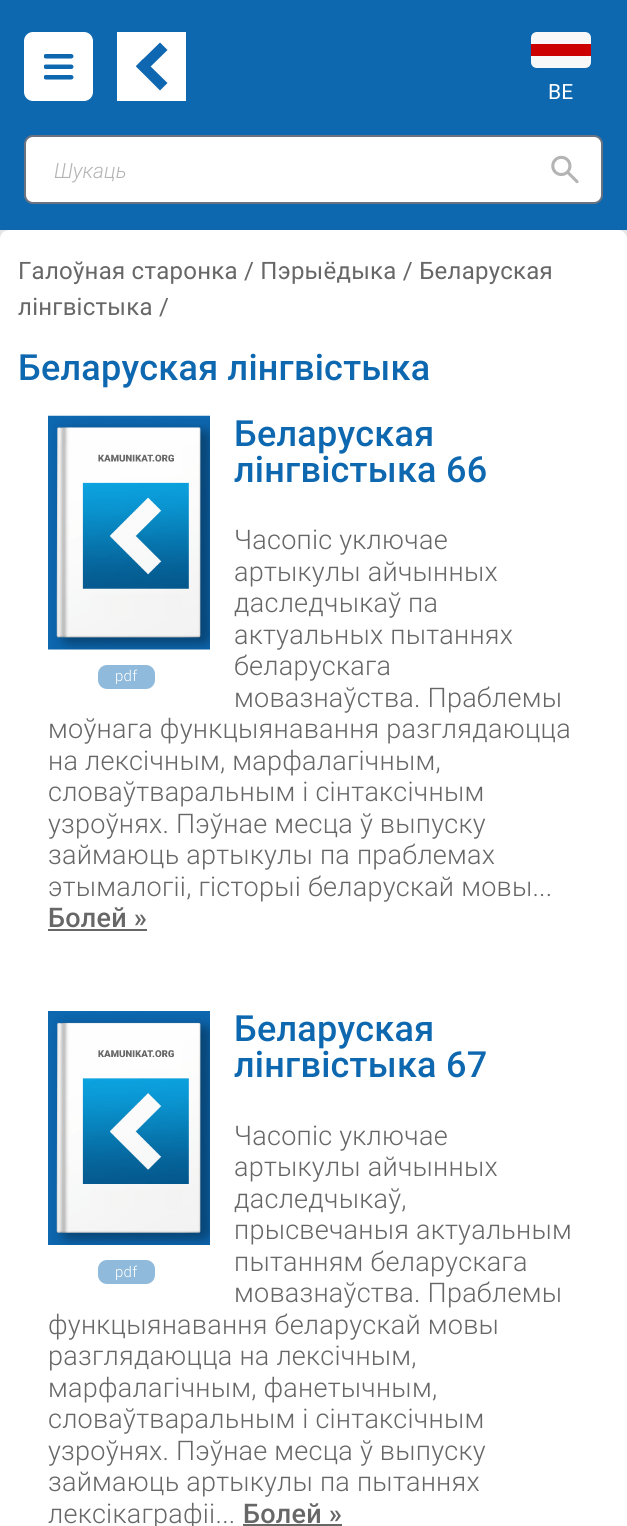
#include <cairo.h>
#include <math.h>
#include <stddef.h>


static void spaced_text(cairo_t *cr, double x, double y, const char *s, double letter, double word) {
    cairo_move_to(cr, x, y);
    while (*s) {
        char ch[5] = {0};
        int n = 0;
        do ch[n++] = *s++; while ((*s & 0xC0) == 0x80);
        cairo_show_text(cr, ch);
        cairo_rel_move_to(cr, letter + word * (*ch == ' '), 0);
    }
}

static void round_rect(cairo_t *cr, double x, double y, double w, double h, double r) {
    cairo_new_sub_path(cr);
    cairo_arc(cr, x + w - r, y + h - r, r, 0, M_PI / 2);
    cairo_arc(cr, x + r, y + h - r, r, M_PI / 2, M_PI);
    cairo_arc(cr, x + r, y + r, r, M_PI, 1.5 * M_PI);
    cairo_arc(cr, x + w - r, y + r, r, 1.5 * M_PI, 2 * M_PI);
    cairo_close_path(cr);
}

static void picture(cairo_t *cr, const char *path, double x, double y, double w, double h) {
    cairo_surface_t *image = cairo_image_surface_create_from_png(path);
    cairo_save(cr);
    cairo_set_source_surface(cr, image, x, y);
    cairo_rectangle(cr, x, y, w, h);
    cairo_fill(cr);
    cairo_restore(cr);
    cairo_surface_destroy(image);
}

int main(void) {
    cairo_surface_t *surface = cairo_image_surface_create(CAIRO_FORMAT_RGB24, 627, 1526);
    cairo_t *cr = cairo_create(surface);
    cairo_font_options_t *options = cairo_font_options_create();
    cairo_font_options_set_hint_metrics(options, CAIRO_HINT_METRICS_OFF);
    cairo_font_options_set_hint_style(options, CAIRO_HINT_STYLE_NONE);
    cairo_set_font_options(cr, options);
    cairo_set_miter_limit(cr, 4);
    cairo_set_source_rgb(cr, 0.898, 0.898, 0.898);
    cairo_paint(cr);
    cairo_set_source_rgb(cr, 0.055, 0.408, 0.69);
    cairo_rectangle(cr, 0, 0, 627, 230);
    cairo_fill(cr);
    cairo_set_source_rgb(cr, 1, 1, 1);
    round_rect(cr, 24, 32, 69, 69, 9);
    cairo_fill(cr);
    picture(cr, "img1.png", 44, 54, 30, 26);
    cairo_rectangle(cr, 117, 32, 69, 69);
    cairo_fill(cr);
    cairo_set_source_rgb(cr, 0.055, 0.404, 0.69);
    cairo_new_path(cr);
    cairo_move_to(cr, 136, 66.5);
    cairo_line_to(cr, 143, 59);
    cairo_line_to(cr, 167.5, 83);
    cairo_line_to(cr, 160, 90.5);
    cairo_close_path(cr);
    cairo_fill(cr);
    cairo_new_path(cr);
    cairo_move_to(cr, 143.5, 73.5);
    cairo_line_to(cr, 136, 66);
    cairo_line_to(cr, 160, 42.5);
    cairo_line_to(cr, 167.5, 50);
    cairo_close_path(cr);
    cairo_fill(cr);
    cairo_set_source_rgb(cr, 0.969, 0.969, 0.969);
    cairo_new_path(cr);
    cairo_move_to(cr, 537, 32);
    cairo_line_to(cr, 585, 32);
    cairo_curve_to(cr, 588.5, 32, 591, 34.5, 591, 38);
    cairo_line_to(cr, 591, 44);
    cairo_line_to(cr, 531, 44);
    cairo_line_to(cr, 531, 38);
    cairo_curve_to(cr, 531, 34.5, 533.5, 32, 537, 32);
    cairo_close_path(cr);
    cairo_fill(cr);
    cairo_new_path(cr);
    cairo_move_to(cr, 531, 56);
    cairo_line_to(cr, 591, 56);
    cairo_line_to(cr, 591, 62);
    cairo_curve_to(cr, 591, 65.5, 588.5, 68, 585, 68);
    cairo_line_to(cr, 537, 68);
    cairo_curve_to(cr, 533.5, 68, 531, 65.5, 531, 62);
    cairo_close_path(cr);
    cairo_fill(cr);
    cairo_set_source_rgb(cr, 0.8, 0, 0);
    cairo_rectangle(cr, 531, 44, 60, 12);
    cairo_fill(cr);
    cairo_select_font_face(cr, "Roboto", CAIRO_FONT_SLANT_NORMAL, CAIRO_FONT_WEIGHT_NORMAL);
    cairo_set_font_size(cr, 21);
    cairo_set_source_rgb(cr, 1, 1, 1);
    spaced_text(cr, 548, 99, "BE", 0.25, 0);
    round_rect(cr, 25, 136, 577, 67, 8);
    cairo_fill_preserve(cr);
    cairo_set_source_rgb(cr, 0.42, 0.447, 0.502);
    cairo_stroke(cr);
    cairo_select_font_face(cr, "Roboto Light", CAIRO_FONT_SLANT_ITALIC, CAIRO_FONT_WEIGHT_NORMAL);
    cairo_set_source_rgb(cr, 0.71, 0.706, 0.706);
    cairo_move_to(cr, 54, 178);
    cairo_show_text(cr, "Шукаць");
    picture(cr, "img2.png", 551, 155, 28, 29);
    cairo_set_source_rgb(cr, 1, 1, 1);
    round_rect(cr, 0, 230, 627, 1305, 9);
    cairo_fill(cr);
    cairo_select_font_face(cr, "Roboto", CAIRO_FONT_SLANT_NORMAL, CAIRO_FONT_WEIGHT_NORMAL);
    cairo_set_font_size(cr, 24);
    cairo_set_source_rgb(cr, 0.404, 0.404, 0.404);
    spaced_text(cr, 18, 279, "Галоўная старонка / Пэрыёдыка / Беларуская", 0.25, 0);
    spaced_text(cr, 18, 315, "лінгвістыка /", 0.25, 0);
    cairo_select_font_face(cr, "Roboto Medium", CAIRO_FONT_SLANT_NORMAL, CAIRO_FONT_WEIGHT_NORMAL);
    cairo_set_font_size(cr, 36);
    cairo_set_source_rgb(cr, 0.055, 0.408, 0.69);
    spaced_text(cr, 18, 380, "Беларуская лінгвістыка", 0.25, 0);
    spaced_text(cr, 234, 446, "Беларуская", 0.25, 0);
    spaced_text(cr, 234, 482, "лінгвістыка 66", 0.25, 0);
    cairo_select_font_face(cr, "Roboto Light", CAIRO_FONT_SLANT_NORMAL, CAIRO_FONT_WEIGHT_NORMAL);
    cairo_set_font_size(cr, 27);
    cairo_set_source_rgb(cr, 0.404, 0.404, 0.404);
    spaced_text(cr, 234, 549, "Часопіс уключае", 0.25, 0);
    spaced_text(cr, 234, 581, "артыкулы айчынных", 0.25, 0);
    spaced_text(cr, 234, 612, "даследчыкаў па", 0.25, 0);
    spaced_text(cr, 234, 644, "актуальных пытаннях", 0.25, 0);
    spaced_text(cr, 234, 675, "беларускага", 0.25, 0);
    spaced_text(cr, 234, 707, "мовазнаўства. Праблемы", 0.25, 0);
    spaced_text(cr, 48, 738, "моўнага функцыянавання разглядаюцца", 0.25, 0);
    spaced_text(cr, 48, 770, "на лексічным, марфалагічным,", 0.25, 0);
    spaced_text(cr, 48, 801, "словаўтваральным і сінтаксічным", 0.25, 0);
    spaced_text(cr, 48, 833, "узроўнях. Пэўнае месца ў выпуску", 0.25, 0);
    spaced_text(cr, 48, 864, "займаюць артыкулы па праблемах", 0.25, 0);
    spaced_text(cr, 48, 896, "этымалогіі, гісторыі беларускай мовы...", 0.25, 0);
    cairo_select_font_face(cr, "Roboto Medium", CAIRO_FONT_SLANT_NORMAL, CAIRO_FONT_WEIGHT_NORMAL);
    spaced_text(cr, 48, 927, "Болей »", 0.25, 0);
    cairo_rectangle(cr, 48, 929, 99, 2);
    cairo_fill(cr);
    picture(cr, "img3.png", 48, 415, 162, 235);
    cairo_set_source_rgb(cr, 0.565, 0.729, 0.859);
    round_rect(cr, 98, 665, 57, 24, 9);
    cairo_fill(cr);
    cairo_select_font_face(cr, "Roboto Light", CAIRO_FONT_SLANT_NORMAL, CAIRO_FONT_WEIGHT_NORMAL);
    cairo_set_font_size(cr, 15);
    cairo_set_source_rgb(cr, 1, 1, 1);
    spaced_text(cr, 115, 681, "pdf", 0.25, 0);
    cairo_select_font_face(cr, "Roboto Medium", CAIRO_FONT_SLANT_NORMAL, CAIRO_FONT_WEIGHT_NORMAL);
    cairo_set_font_size(cr, 36);
    cairo_set_source_rgb(cr, 0.055, 0.408, 0.69);
    spaced_text(cr, 234, 1041, "Беларуская", 0.25, 0);
    spaced_text(cr, 234, 1077, "лінгвістыка 67", 0.25, 0);
    cairo_select_font_face(cr, "Roboto Light", CAIRO_FONT_SLANT_NORMAL, CAIRO_FONT_WEIGHT_NORMAL);
    cairo_set_font_size(cr, 27);
    cairo_set_source_rgb(cr, 0.404, 0.404, 0.404);
    spaced_text(cr, 234, 1145, "Часопіс уключае", 0.25, 0);
    spaced_text(cr, 234, 1176, "артыкулы айчынных", 0.25, 0);
    spaced_text(cr, 234, 1208, "даследчыкаў,", 0.25, 0);
    spaced_text(cr, 234, 1239, "прысвечаныя актуальным", 0.25, 0);
    spaced_text(cr, 234, 1271, "пытанням беларускага", 0.25, 0);
    spaced_text(cr, 234, 1302, "мовазнаўства. Праблемы", 0.25, 0);
    spaced_text(cr, 48, 1334, "функцыянавання беларускай мовы", 0.25, 0);
    spaced_text(cr, 48, 1365, "разглядаюцца на лексічным,", 0.25, 0);
    spaced_text(cr, 48, 1397, "марфалагічным, фанетычным,", 0.25, 0);
    spaced_text(cr, 48, 1428, "словаўтваральным і сінтаксічным", 0.25, 0);
    spaced_text(cr, 48, 1460, "узроўнях. Пэўнае месца ў выпуску", 0.25, 0);
    spaced_text(cr, 48, 1491, "займаюць артыкулы па пытаннях", 0.25, 0);
    spaced_text(cr, 48, 1523, "лексікаграфіі...", 0.25, 0);
    cairo_select_font_face(cr, "Roboto Medium", CAIRO_FONT_SLANT_NORMAL, CAIRO_FONT_WEIGHT_NORMAL);
    spaced_text(cr, 243, 1523, "Болей »", 0.25, 0);
    cairo_rectangle(cr, 243, 1524, 99, 2);
    cairo_fill(cr);
    picture(cr, "img4.png", 48, 1011, 162, 234);
    cairo_set_source_rgb(cr, 0.565, 0.729, 0.859);
    round_rect(cr, 98, 1260, 57, 24, 9);
    cairo_fill(cr);
    cairo_select_font_face(cr, "Roboto Light", CAIRO_FONT_SLANT_NORMAL, CAIRO_FONT_WEIGHT_NORMAL);
    cairo_set_font_size(cr, 15);
    cairo_set_source_rgb(cr, 1, 1, 1);
    spaced_text(cr, 115, 1277, "pdf", 0.25, 0);
    cairo_surface_write_to_png(surface, "page.png");
    cairo_font_options_destroy(options);
    cairo_destroy(cr);
    cairo_surface_destroy(surface);
    return 0;
}
